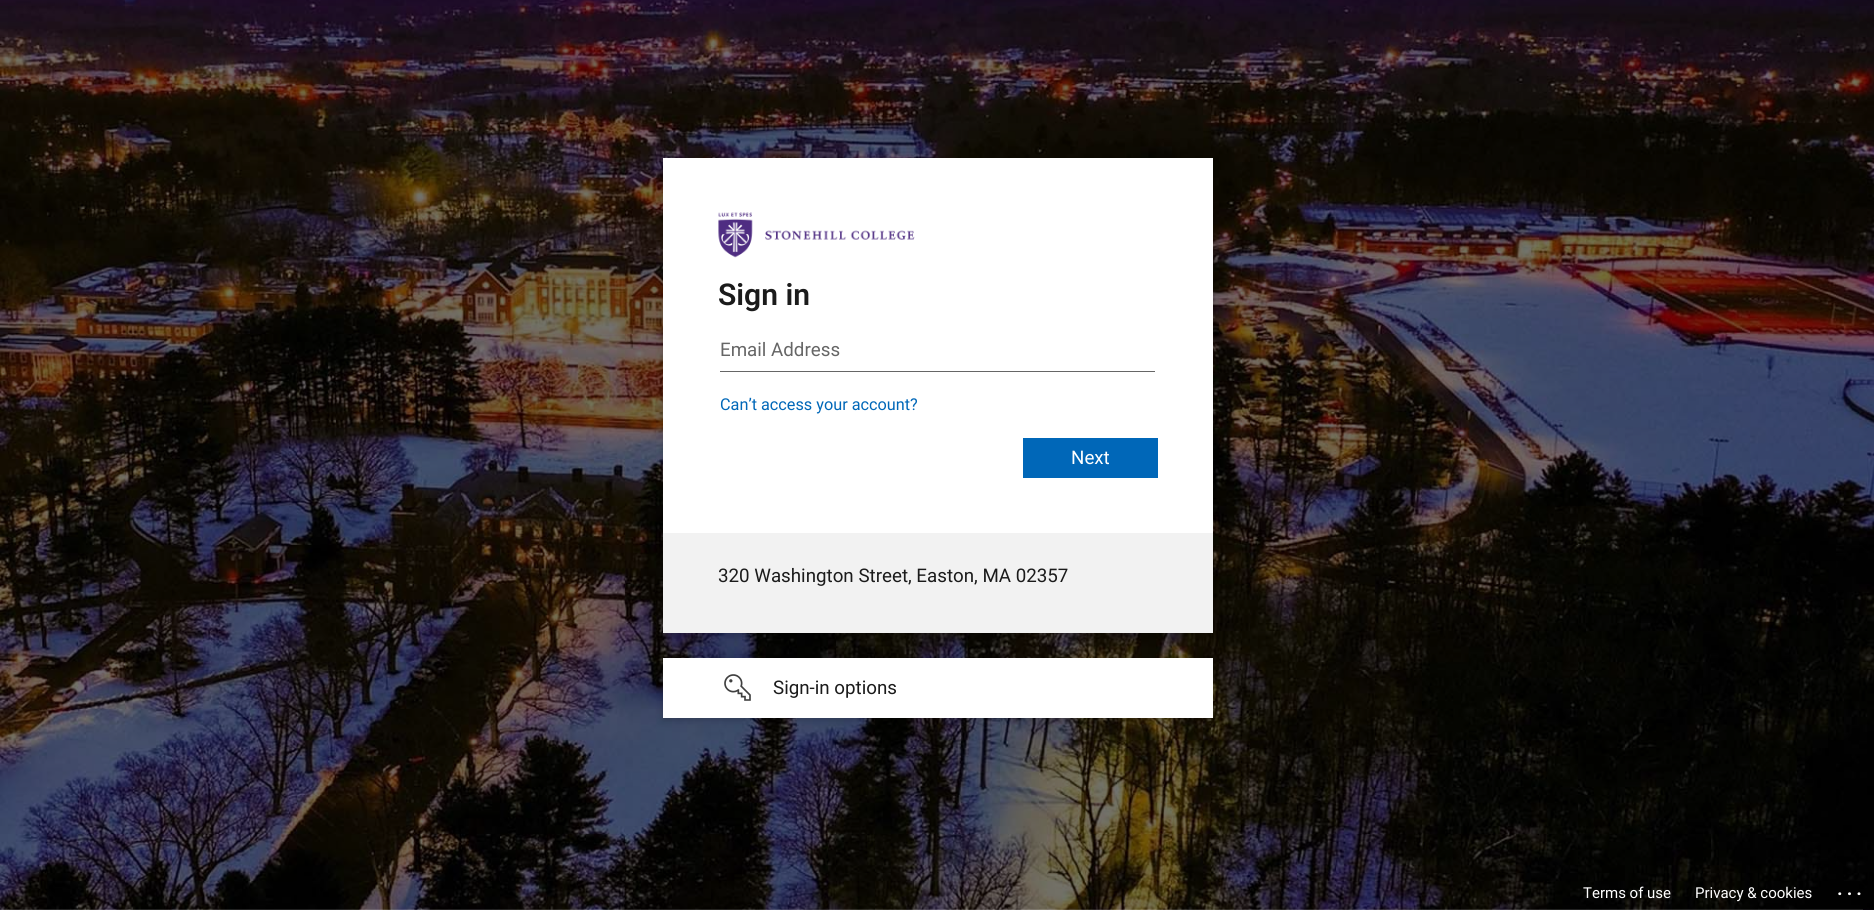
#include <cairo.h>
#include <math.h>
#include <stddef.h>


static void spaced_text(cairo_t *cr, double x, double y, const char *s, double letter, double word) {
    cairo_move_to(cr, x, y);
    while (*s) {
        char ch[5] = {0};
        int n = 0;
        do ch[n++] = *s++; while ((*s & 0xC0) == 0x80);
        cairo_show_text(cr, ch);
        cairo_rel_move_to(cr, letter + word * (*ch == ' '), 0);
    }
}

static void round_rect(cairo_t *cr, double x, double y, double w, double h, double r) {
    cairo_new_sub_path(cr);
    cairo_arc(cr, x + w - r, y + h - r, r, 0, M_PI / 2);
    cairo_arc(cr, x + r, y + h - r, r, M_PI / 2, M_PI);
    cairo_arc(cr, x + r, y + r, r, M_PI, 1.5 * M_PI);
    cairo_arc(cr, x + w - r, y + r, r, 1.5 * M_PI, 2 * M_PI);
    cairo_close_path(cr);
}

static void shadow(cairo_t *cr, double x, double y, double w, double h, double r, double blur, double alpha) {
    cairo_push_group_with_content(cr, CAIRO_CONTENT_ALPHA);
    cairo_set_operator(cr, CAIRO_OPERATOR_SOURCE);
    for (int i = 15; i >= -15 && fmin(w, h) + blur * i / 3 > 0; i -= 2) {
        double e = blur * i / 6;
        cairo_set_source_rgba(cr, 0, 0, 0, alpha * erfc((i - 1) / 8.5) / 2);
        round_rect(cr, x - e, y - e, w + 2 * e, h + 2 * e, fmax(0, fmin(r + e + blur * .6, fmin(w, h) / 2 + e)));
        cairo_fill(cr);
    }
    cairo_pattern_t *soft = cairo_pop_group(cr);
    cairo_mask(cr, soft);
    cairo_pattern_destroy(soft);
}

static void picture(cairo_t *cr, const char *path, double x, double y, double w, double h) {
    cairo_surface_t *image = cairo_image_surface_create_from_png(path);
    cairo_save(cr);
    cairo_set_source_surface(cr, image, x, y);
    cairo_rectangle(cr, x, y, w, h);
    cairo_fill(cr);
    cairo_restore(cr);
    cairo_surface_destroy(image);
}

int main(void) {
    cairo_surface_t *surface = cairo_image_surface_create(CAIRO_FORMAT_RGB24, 1874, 910);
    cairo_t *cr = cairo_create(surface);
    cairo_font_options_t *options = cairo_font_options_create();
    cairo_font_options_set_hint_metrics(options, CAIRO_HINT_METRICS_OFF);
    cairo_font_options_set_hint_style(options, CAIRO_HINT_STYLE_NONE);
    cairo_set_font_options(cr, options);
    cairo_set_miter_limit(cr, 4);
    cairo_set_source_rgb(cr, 1, 1, 1);
    cairo_paint(cr);
    picture(cr, "img1.png", 0, 0, 1874, 910);
    cairo_set_source_rgb(cr, 0, 0, 0);
    shadow(cr, 663, 160, 550, 475, 0, 4, 0.2);
    cairo_set_source_rgb(cr, 1, 1, 1);
    cairo_rectangle(cr, 663, 158, 550, 375);
    cairo_fill(cr);
    picture(cr, "img2.png", 718, 212, 197, 46);
    cairo_select_font_face(cr, "Roboto SemiBold", CAIRO_FONT_SLANT_NORMAL, CAIRO_FONT_WEIGHT_NORMAL);
    cairo_set_font_size(cr, 30);
    cairo_set_source_rgb(cr, 0.106, 0.106, 0.106);
    cairo_move_to(cr, 718, 305);
    cairo_show_text(cr, "Sign in");
    cairo_set_source_rgb(cr, 0.4, 0.4, 0.4);
    cairo_rectangle(cr, 720, 371, 435, 1);
    cairo_fill(cr);
    cairo_select_font_face(cr, "Roboto", CAIRO_FONT_SLANT_NORMAL, CAIRO_FONT_WEIGHT_NORMAL);
    cairo_set_font_size(cr, 18.75);
    cairo_move_to(cr, 720, 356);
    cairo_show_text(cr, "Email Address");
    cairo_set_source_rgb(cr, 0.024, 0.012, 0.035);
    cairo_rectangle(cr, 1863, 909, 11, 1);
    cairo_fill(cr);
    cairo_set_font_size(cr, 16.25);
    cairo_set_source_rgb(cr, 0, 0.404, 0.722);
    cairo_move_to(cr, 720, 410);
    cairo_show_text(cr, "Can’t access your account?");
    cairo_rectangle(cr, 1023, 438, 135, 40);
    cairo_fill(cr);
    cairo_set_font_size(cr, 18.75);
    cairo_set_source_rgb(cr, 1, 1, 1);
    cairo_move_to(cr, 1071, 464);
    cairo_show_text(cr, "Next");
    cairo_set_source_rgb(cr, 0.949, 0.949, 0.949);
    cairo_rectangle(cr, 663, 533, 550, 100);
    cairo_fill(cr);
    cairo_set_source_rgb(cr, 0.106, 0.106, 0.106);
    cairo_move_to(cr, 718, 582);
    cairo_show_text(cr, "320 Washington Street, Easton, MA 02357");
    cairo_set_source_rgb(cr, 0, 0, 0);
    shadow(cr, 663, 660, 550, 60, 0, 4, 0.2);
    cairo_set_source_rgb(cr, 1, 1, 1);
    cairo_rectangle(cr, 663, 658, 550, 60);
    cairo_fill(cr);
    picture(cr, "img3.png", 724, 674, 27, 27);
    cairo_set_source_rgb(cr, 0.106, 0.106, 0.106);
    cairo_move_to(cr, 773, 694);
    cairo_show_text(cr, "Sign-in options");
    cairo_set_font_size(cr, 15);
    cairo_set_source_rgb(cr, 1, 1, 1);
    cairo_move_to(cr, 1583, 898);
    cairo_show_text(cr, "Terms of use");
    cairo_move_to(cr, 1695, 898);
    cairo_show_text(cr, "Privacy & cookies");
    cairo_select_font_face(cr, "Roboto SemiBold", CAIRO_FONT_SLANT_NORMAL, CAIRO_FONT_WEIGHT_NORMAL);
    cairo_set_font_size(cr, 20);
    spaced_text(cr, 1837, 895, "...", 4, 0);
    cairo_surface_write_to_png(surface, "page.png");
    cairo_font_options_destroy(options);
    cairo_destroy(cr);
    cairo_surface_destroy(surface);
    return 0;
}
